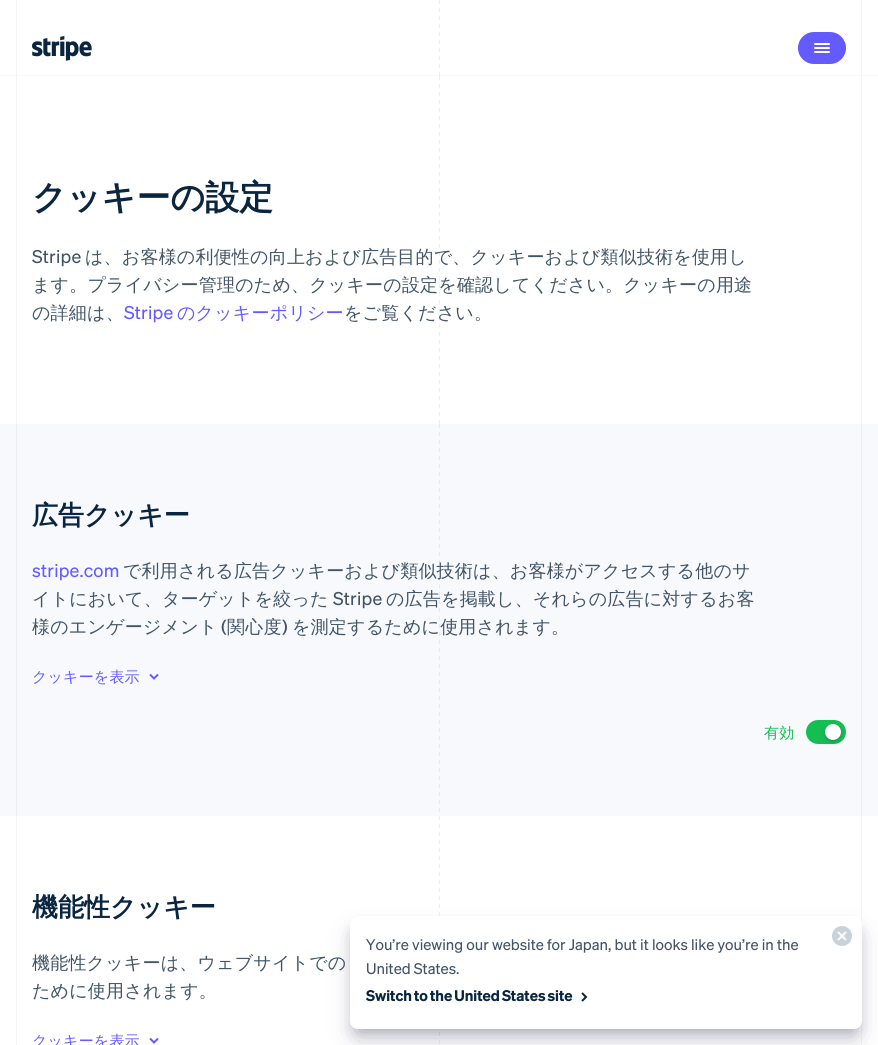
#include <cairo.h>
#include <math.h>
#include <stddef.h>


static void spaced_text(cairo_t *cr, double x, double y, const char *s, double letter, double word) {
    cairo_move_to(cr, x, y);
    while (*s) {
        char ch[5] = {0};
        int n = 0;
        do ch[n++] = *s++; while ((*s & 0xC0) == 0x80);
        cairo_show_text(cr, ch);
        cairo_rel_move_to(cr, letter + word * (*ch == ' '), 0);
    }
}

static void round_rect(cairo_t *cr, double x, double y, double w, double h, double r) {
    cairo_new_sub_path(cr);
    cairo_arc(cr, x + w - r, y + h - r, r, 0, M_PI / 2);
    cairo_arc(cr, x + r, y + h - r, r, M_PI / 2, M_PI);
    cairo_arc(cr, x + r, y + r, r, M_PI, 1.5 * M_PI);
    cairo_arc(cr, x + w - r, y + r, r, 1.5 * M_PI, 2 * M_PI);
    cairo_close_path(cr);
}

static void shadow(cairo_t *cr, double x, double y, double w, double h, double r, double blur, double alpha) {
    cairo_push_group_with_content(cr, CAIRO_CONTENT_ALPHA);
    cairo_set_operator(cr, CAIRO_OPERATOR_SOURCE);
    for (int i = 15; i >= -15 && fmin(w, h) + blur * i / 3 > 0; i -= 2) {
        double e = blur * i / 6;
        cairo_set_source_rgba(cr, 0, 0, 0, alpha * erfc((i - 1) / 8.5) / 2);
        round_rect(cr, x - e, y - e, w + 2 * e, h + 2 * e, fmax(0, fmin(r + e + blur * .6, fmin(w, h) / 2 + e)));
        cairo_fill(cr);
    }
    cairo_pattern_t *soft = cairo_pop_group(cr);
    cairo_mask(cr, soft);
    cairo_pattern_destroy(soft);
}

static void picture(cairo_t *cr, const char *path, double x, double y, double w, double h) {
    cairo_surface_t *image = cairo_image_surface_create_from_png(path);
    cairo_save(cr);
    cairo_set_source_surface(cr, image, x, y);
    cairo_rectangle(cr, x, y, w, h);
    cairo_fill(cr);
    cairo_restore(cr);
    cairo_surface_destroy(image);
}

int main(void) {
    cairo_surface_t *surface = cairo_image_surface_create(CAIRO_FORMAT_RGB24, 878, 1045);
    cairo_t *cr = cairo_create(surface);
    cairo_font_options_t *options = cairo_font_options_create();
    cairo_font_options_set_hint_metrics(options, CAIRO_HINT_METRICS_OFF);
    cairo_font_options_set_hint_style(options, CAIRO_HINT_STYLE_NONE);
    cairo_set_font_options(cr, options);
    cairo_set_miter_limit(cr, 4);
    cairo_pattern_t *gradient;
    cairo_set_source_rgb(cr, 1, 1, 1);
    cairo_paint(cr);
    cairo_set_source_rgb(cr, 0.969, 0.973, 0.976);
    cairo_rectangle(cr, 0, 75, 878, 1);
    cairo_fill(cr);
    cairo_set_source_rgb(cr, 0.957, 0.957, 0.965);
    cairo_rectangle(cr, 16, 0, 1, 424);
    cairo_fill(cr);
    cairo_set_source_rgb(cr, 0.929, 0.929, 0.945);
    cairo_rectangle(cr, 16, 75, 1, 1);
    cairo_fill(cr);
    gradient = cairo_pattern_create_linear(440, 0, 440, 8);
    cairo_pattern_add_color_stop_rgba(gradient, 0, 0.933, 0.933, 0.949, 1);
    cairo_pattern_add_color_stop_rgba(gradient, 0.5, 0.933, 0.933, 0.949, 1);
    cairo_pattern_add_color_stop_rgba(gradient, 0.5, 1, 1, 1, 1);
    cairo_pattern_add_color_stop_rgba(gradient, 1, 1, 1, 1, 1);
    cairo_set_source(cr, gradient);
    cairo_pattern_destroy(gradient);
    cairo_rectangle(cr, 439, 0, 1, 8);
    cairo_fill(cr);
    gradient = cairo_pattern_create_linear(440, 8, 440, 16);
    cairo_pattern_add_color_stop_rgba(gradient, 0, 0.933, 0.933, 0.949, 1);
    cairo_pattern_add_color_stop_rgba(gradient, 0.5, 0.933, 0.933, 0.949, 1);
    cairo_pattern_add_color_stop_rgba(gradient, 0.5, 1, 1, 1, 1);
    cairo_pattern_add_color_stop_rgba(gradient, 1, 1, 1, 1, 1);
    cairo_set_source(cr, gradient);
    cairo_pattern_destroy(gradient);
    cairo_rectangle(cr, 439, 8, 1, 8);
    cairo_fill(cr);
    gradient = cairo_pattern_create_linear(440, 16, 440, 24);
    cairo_pattern_add_color_stop_rgba(gradient, 0, 0.933, 0.933, 0.949, 1);
    cairo_pattern_add_color_stop_rgba(gradient, 0.5, 0.933, 0.933, 0.949, 1);
    cairo_pattern_add_color_stop_rgba(gradient, 0.5, 1, 1, 1, 1);
    cairo_pattern_add_color_stop_rgba(gradient, 1, 1, 1, 1, 1);
    cairo_set_source(cr, gradient);
    cairo_pattern_destroy(gradient);
    cairo_rectangle(cr, 439, 16, 1, 8);
    cairo_fill(cr);
    gradient = cairo_pattern_create_linear(440, 24, 440, 32);
    cairo_pattern_add_color_stop_rgba(gradient, 0, 0.933, 0.933, 0.949, 1);
    cairo_pattern_add_color_stop_rgba(gradient, 0.5, 0.933, 0.933, 0.949, 1);
    cairo_pattern_add_color_stop_rgba(gradient, 0.5, 1, 1, 1, 1);
    cairo_pattern_add_color_stop_rgba(gradient, 1, 1, 1, 1, 1);
    cairo_set_source(cr, gradient);
    cairo_pattern_destroy(gradient);
    cairo_rectangle(cr, 439, 24, 1, 8);
    cairo_fill(cr);
    gradient = cairo_pattern_create_linear(440, 32, 440, 40);
    cairo_pattern_add_color_stop_rgba(gradient, 0, 0.933, 0.933, 0.949, 1);
    cairo_pattern_add_color_stop_rgba(gradient, 0.5, 0.933, 0.933, 0.949, 1);
    cairo_pattern_add_color_stop_rgba(gradient, 0.5, 1, 1, 1, 1);
    cairo_pattern_add_color_stop_rgba(gradient, 1, 1, 1, 1, 1);
    cairo_set_source(cr, gradient);
    cairo_pattern_destroy(gradient);
    cairo_rectangle(cr, 439, 32, 1, 8);
    cairo_fill(cr);
    gradient = cairo_pattern_create_linear(440, 40, 440, 48);
    cairo_pattern_add_color_stop_rgba(gradient, 0, 0.933, 0.933, 0.949, 1);
    cairo_pattern_add_color_stop_rgba(gradient, 0.5, 0.933, 0.933, 0.949, 1);
    cairo_pattern_add_color_stop_rgba(gradient, 0.5, 1, 1, 1, 1);
    cairo_pattern_add_color_stop_rgba(gradient, 1, 1, 1, 1, 1);
    cairo_set_source(cr, gradient);
    cairo_pattern_destroy(gradient);
    cairo_rectangle(cr, 439, 40, 1, 8);
    cairo_fill(cr);
    gradient = cairo_pattern_create_linear(440, 48, 440, 56);
    cairo_pattern_add_color_stop_rgba(gradient, 0, 0.933, 0.933, 0.949, 1);
    cairo_pattern_add_color_stop_rgba(gradient, 0.5, 0.933, 0.933, 0.949, 1);
    cairo_pattern_add_color_stop_rgba(gradient, 0.5, 1, 1, 1, 1);
    cairo_pattern_add_color_stop_rgba(gradient, 1, 1, 1, 1, 1);
    cairo_set_source(cr, gradient);
    cairo_pattern_destroy(gradient);
    cairo_rectangle(cr, 439, 48, 1, 8);
    cairo_fill(cr);
    gradient = cairo_pattern_create_linear(440, 56, 440, 64);
    cairo_pattern_add_color_stop_rgba(gradient, 0, 0.933, 0.933, 0.949, 1);
    cairo_pattern_add_color_stop_rgba(gradient, 0.5, 0.933, 0.933, 0.949, 1);
    cairo_pattern_add_color_stop_rgba(gradient, 0.5, 1, 1, 1, 1);
    cairo_pattern_add_color_stop_rgba(gradient, 1, 1, 1, 1, 1);
    cairo_set_source(cr, gradient);
    cairo_pattern_destroy(gradient);
    cairo_rectangle(cr, 439, 56, 1, 8);
    cairo_fill(cr);
    gradient = cairo_pattern_create_linear(440, 64, 440, 72);
    cairo_pattern_add_color_stop_rgba(gradient, 0, 0.933, 0.933, 0.949, 1);
    cairo_pattern_add_color_stop_rgba(gradient, 0.5, 0.933, 0.933, 0.949, 1);
    cairo_pattern_add_color_stop_rgba(gradient, 0.5, 1, 1, 1, 1);
    cairo_pattern_add_color_stop_rgba(gradient, 1, 1, 1, 1, 1);
    cairo_set_source(cr, gradient);
    cairo_pattern_destroy(gradient);
    cairo_rectangle(cr, 439, 64, 1, 8);
    cairo_fill(cr);
    gradient = cairo_pattern_create_linear(440, 72, 440, 80);
    cairo_pattern_add_color_stop_rgba(gradient, 0, 0.933, 0.933, 0.949, 1);
    cairo_pattern_add_color_stop_rgba(gradient, 0.5, 0.933, 0.933, 0.949, 1);
    cairo_pattern_add_color_stop_rgba(gradient, 0.5, 1, 1, 1, 1);
    cairo_pattern_add_color_stop_rgba(gradient, 1, 1, 1, 1, 1);
    cairo_set_source(cr, gradient);
    cairo_pattern_destroy(gradient);
    cairo_rectangle(cr, 439, 72, 1, 4);
    cairo_fill(cr);
    gradient = cairo_pattern_create_linear(440, 72, 440, 80);
    cairo_pattern_add_color_stop_rgba(gradient, 0, 0.906, 0.906, 0.929, 1);
    cairo_pattern_add_color_stop_rgba(gradient, 0.5, 0.906, 0.906, 0.929, 1);
    cairo_pattern_add_color_stop_rgba(gradient, 0.5, 0.969, 0.973, 0.976, 1);
    cairo_pattern_add_color_stop_rgba(gradient, 1, 0.969, 0.973, 0.976, 1);
    cairo_set_source(cr, gradient);
    cairo_pattern_destroy(gradient);
    cairo_rectangle(cr, 439, 75, 1, 1);
    cairo_fill(cr);
    cairo_set_source_rgb(cr, 0.957, 0.957, 0.965);
    cairo_rectangle(cr, 861, 0, 1, 424);
    cairo_fill(cr);
    cairo_set_source_rgb(cr, 0.929, 0.929, 0.945);
    cairo_rectangle(cr, 861, 75, 1, 1);
    cairo_fill(cr);
    picture(cr, "img1.png", 32, 36, 60, 25);
    cairo_set_source_rgb(cr, 0.388, 0.357, 1);
    round_rect(cr, 798, 32, 48, 32, 16);
    cairo_fill(cr);
    cairo_set_source_rgb(cr, 1, 1, 1);
    round_rect(cr, 814, 51, 16, 2, 1);
    cairo_fill(cr);
    round_rect(cr, 814, 47, 16, 2, 1);
    cairo_fill(cr);
    round_rect(cr, 814, 43, 16, 2, 1);
    cairo_fill(cr);
    picture(cr, "img2.png", 439, 76, 1, 348);
    cairo_select_font_face(cr, "WenQuanYi Zen Hei", CAIRO_FONT_SLANT_NORMAL, CAIRO_FONT_WEIGHT_BOLD);
    cairo_set_font_size(cr, 34);
    cairo_set_source_rgb(cr, 0.039, 0.145, 0.251);
    cairo_move_to(cr, 32, 209);
    cairo_show_text(cr, "クッキーの設定");
    cairo_select_font_face(cr, "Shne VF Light", CAIRO_FONT_SLANT_NORMAL, CAIRO_FONT_WEIGHT_NORMAL);
    cairo_set_font_size(cr, 18);
    cairo_set_source_rgb(cr, 0.259, 0.329, 0.4);
    spaced_text(cr, 32, 263, "Stripe", 0.2, 0);
    cairo_select_font_face(cr, "WenQuanYi Zen Hei Medium", CAIRO_FONT_SLANT_NORMAL, CAIRO_FONT_WEIGHT_NORMAL);
    spaced_text(cr, 85, 263, "は、お客様の利便性の向上および広告目的で、クッキーおよび類似技術を使用し", 0.2, 0);
    spaced_text(cr, 32, 291, "ます。プライバシー管理のため、クッキーの設定を確認してください。クッキーの用途", 0.2, 0);
    spaced_text(cr, 32, 319, "の詳細は、", 0.2, 0);
    cairo_select_font_face(cr, "Shne VF Light", CAIRO_FONT_SLANT_NORMAL, CAIRO_FONT_WEIGHT_NORMAL);
    cairo_set_source_rgb(cr, 0.388, 0.357, 1);
    spaced_text(cr, 124, 319, "Stripe", 0.2, 0);
    cairo_select_font_face(cr, "WenQuanYi Zen Hei Medium", CAIRO_FONT_SLANT_NORMAL, CAIRO_FONT_WEIGHT_NORMAL);
    spaced_text(cr, 177, 319, "のクッキーポリシー", 0.2, 0);
    cairo_set_source_rgb(cr, 0.259, 0.329, 0.4);
    spaced_text(cr, 344, 319, "をご覧ください。", 0.2, 0);
    cairo_set_source_rgb(cr, 0.965, 0.976, 0.988);
    cairo_rectangle(cr, 0, 424, 878, 392);
    cairo_fill(cr);
    cairo_set_source_rgb(cr, 0.922, 0.933, 0.957);
    cairo_rectangle(cr, 16, 424, 1, 392);
    cairo_fill(cr);
    picture(cr, "img3.png", 439, 424, 1, 388);
    cairo_rectangle(cr, 861, 424, 1, 392);
    cairo_fill(cr);
    cairo_select_font_face(cr, "WenQuanYi Zen Hei", CAIRO_FONT_SLANT_NORMAL, CAIRO_FONT_WEIGHT_BOLD);
    cairo_set_font_size(cr, 26);
    cairo_set_source_rgb(cr, 0.039, 0.145, 0.251);
    cairo_move_to(cr, 32, 524);
    cairo_show_text(cr, "広告クッキー");
    cairo_select_font_face(cr, "Shne VF Light", CAIRO_FONT_SLANT_NORMAL, CAIRO_FONT_WEIGHT_NORMAL);
    cairo_set_font_size(cr, 18);
    cairo_set_source_rgb(cr, 0.388, 0.357, 1);
    spaced_text(cr, 32, 577, "stripe.com", 0.2, 0);
    cairo_select_font_face(cr, "WenQuanYi Zen Hei Medium", CAIRO_FONT_SLANT_NORMAL, CAIRO_FONT_WEIGHT_NORMAL);
    cairo_set_source_rgb(cr, 0.259, 0.329, 0.4);
    spaced_text(cr, 123, 577, "で利用される広告クッキーおよび類似技術は、お客様がアクセスする他のサ", 0.2, 0);
    spaced_text(cr, 32, 605, "イトにおいて、ターゲットを絞った", 0.2, 0);
    cairo_select_font_face(cr, "Shne VF Light", CAIRO_FONT_SLANT_NORMAL, CAIRO_FONT_WEIGHT_NORMAL);
    spaced_text(cr, 333, 605, "Stripe", 0.2, 0);
    cairo_select_font_face(cr, "WenQuanYi Zen Hei Medium", CAIRO_FONT_SLANT_NORMAL, CAIRO_FONT_WEIGHT_NORMAL);
    spaced_text(cr, 386, 605, "の広告を掲載し、それらの広告に対するお客", 0.2, 0);
    spaced_text(cr, 32, 633, "様のエンゲージメント", 0.2, 0);
    cairo_select_font_face(cr, "Shne VF Light", CAIRO_FONT_SLANT_NORMAL, CAIRO_FONT_WEIGHT_NORMAL);
    spaced_text(cr, 221, 633, "(", 0.2, 0);
    cairo_select_font_face(cr, "WenQuanYi Zen Hei Medium", CAIRO_FONT_SLANT_NORMAL, CAIRO_FONT_WEIGHT_NORMAL);
    spaced_text(cr, 227, 633, "関心度", 0.2, 0);
    cairo_select_font_face(cr, "Shne VF Light", CAIRO_FONT_SLANT_NORMAL, CAIRO_FONT_WEIGHT_NORMAL);
    spaced_text(cr, 282, 633, ")", 0.2, 0);
    cairo_select_font_face(cr, "WenQuanYi Zen Hei Medium", CAIRO_FONT_SLANT_NORMAL, CAIRO_FONT_WEIGHT_NORMAL);
    spaced_text(cr, 292, 633, "を測定するために使用されます。", 0.2, 0);
    cairo_set_font_size(cr, 15);
    cairo_set_source_rgb(cr, 0.388, 0.357, 1);
    spaced_text(cr, 32, 682, "クッキーを表示", 0.2, 0);
    cairo_new_path(cr);
    cairo_move_to(cr, 158, 674.5);
    cairo_line_to(cr, 154, 678.5);
    cairo_line_to(cr, 150, 674.5);
    cairo_stroke(cr);
    cairo_set_source_rgb(cr, 0.082, 0.745, 0.325);
    spaced_text(cr, 764, 738, "有効", 0.2, 0);
    round_rect(cr, 806, 720, 40, 24, 12);
    cairo_fill(cr);
    cairo_set_source_rgb(cr, 0, 0, 0);
    shadow(cr, 826, 726, 14, 14, 7, 1.5, 0.3);
    cairo_set_source_rgb(cr, 0.196, 0.196, 0.365);
    shadow(cr, 826, 727, 14, 14, 7, 2.5, 0.25);
    cairo_set_source_rgb(cr, 1, 1, 1);
    cairo_arc(cr, 833, 732, 8, 0, 2 * M_PI);
    cairo_fill(cr);
    cairo_set_source_rgb(cr, 0.957, 0.957, 0.965);
    cairo_rectangle(cr, 16, 816, 1, 229);
    cairo_fill(cr);
    picture(cr, "img4.png", 439, 816, 1, 228);
    cairo_rectangle(cr, 861, 816, 1, 229);
    cairo_fill(cr);
    cairo_select_font_face(cr, "WenQuanYi Zen Hei", CAIRO_FONT_SLANT_NORMAL, CAIRO_FONT_WEIGHT_BOLD);
    cairo_set_font_size(cr, 26);
    cairo_set_source_rgb(cr, 0.039, 0.145, 0.251);
    cairo_move_to(cr, 32, 916);
    cairo_show_text(cr, "機能性クッキー");
    cairo_select_font_face(cr, "WenQuanYi Zen Hei Medium", CAIRO_FONT_SLANT_NORMAL, CAIRO_FONT_WEIGHT_NORMAL);
    cairo_set_font_size(cr, 18);
    cairo_set_source_rgb(cr, 0.259, 0.329, 0.4);
    spaced_text(cr, 32, 969, "機能性クッキーは、ウェブサイトでの", 0.2, 0);
    spaced_text(cr, 32, 997, "ために使用されます。", 0.2, 0);
    cairo_set_font_size(cr, 15);
    cairo_set_source_rgb(cr, 0.388, 0.357, 1);
    spaced_text(cr, 32, 1046, "クッキーを表示", 0.2, 0);
    cairo_new_path(cr);
    cairo_move_to(cr, 158, 1038.5);
    cairo_line_to(cr, 154, 1042.5);
    cairo_line_to(cr, 150, 1038.5);
    cairo_stroke(cr);
    cairo_set_source_rgb(cr, 0, 0, 0);
    shadow(cr, 358, 932, 496, 97, 0, 8, 0.3);
    cairo_set_source_rgb(cr, 0.196, 0.196, 0.365);
    shadow(cr, 355, 934, 502, 103, 3, 13.5, 0.25);
    cairo_set_source_rgb(cr, 1, 1, 1);
    round_rect(cr, 350, 916, 512, 113, 8);
    cairo_fill(cr);
    picture(cr, "img5.png", 832, 926, 20, 20);
    cairo_select_font_face(cr, "Shne VF Light", CAIRO_FONT_SLANT_NORMAL, CAIRO_FONT_WEIGHT_NORMAL);
    cairo_set_source_rgb(cr, 0.259, 0.329, 0.4);
    cairo_move_to(cr, 366, 950);
    cairo_show_text(cr, "You’re viewing our website for Japan, but it looks like you’re in the");
    cairo_move_to(cr, 366, 974);
    cairo_show_text(cr, "United States.");
    cairo_select_font_face(cr, "Shne VF SemiBold", CAIRO_FONT_SLANT_NORMAL, CAIRO_FONT_WEIGHT_NORMAL);
    cairo_set_source_rgb(cr, 0.039, 0.145, 0.251);
    spaced_text(cr, 366, 1001, "Switch to the United States site", 0, -1);
    cairo_new_path(cr);
    cairo_move_to(cr, 582, 993);
    cairo_line_to(cr, 586, 997);
    cairo_line_to(cr, 582, 1001);
    cairo_stroke(cr);
    cairo_surface_write_to_png(surface, "page.png");
    cairo_font_options_destroy(options);
    cairo_destroy(cr);
    cairo_surface_destroy(surface);
    return 0;
}
